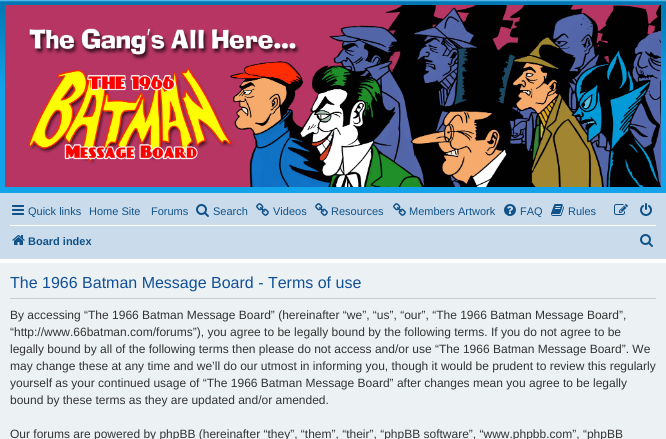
#include <cairo.h>
#include <math.h>
#include <stddef.h>


static void picture(cairo_t *cr, const char *path, double x, double y, double w, double h) {
    cairo_surface_t *image = cairo_image_surface_create_from_png(path);
    cairo_save(cr);
    cairo_set_source_surface(cr, image, x, y);
    cairo_rectangle(cr, x, y, w, h);
    cairo_fill(cr);
    cairo_restore(cr);
    cairo_surface_destroy(image);
}

int main(void) {
    cairo_surface_t *surface = cairo_image_surface_create(CAIRO_FORMAT_RGB24, 666, 439);
    cairo_t *cr = cairo_create(surface);
    cairo_font_options_t *options = cairo_font_options_create();
    cairo_font_options_set_hint_metrics(options, CAIRO_HINT_METRICS_OFF);
    cairo_font_options_set_hint_style(options, CAIRO_HINT_STYLE_NONE);
    cairo_set_font_options(cr, options);
    cairo_set_miter_limit(cr, 4);
    cairo_pattern_t *gradient;
    cairo_set_source_rgb(cr, 1, 1, 1);
    cairo_paint(cr);
    gradient = cairo_pattern_create_linear(333, 0, 333, 194);
    cairo_pattern_add_color_stop_rgba(gradient, 0, 0.416, 0.808, 1, 1);
    cairo_pattern_add_color_stop_rgba(gradient, 0.01, 0, 0.463, 0.694, 1);
    cairo_pattern_add_color_stop_rgba(gradient, 0.47, 0.071, 0.639, 0.922, 1);
    cairo_pattern_add_color_stop_rgba(gradient, 1, 0.071, 0.639, 0.922, 1);
    cairo_set_source(cr, gradient);
    cairo_pattern_destroy(gradient);
    cairo_rectangle(cr, 0, 0, 666, 193);
    cairo_fill(cr);
    picture(cr, "img1.png", 5, 5, 656, 182);
    cairo_set_source_rgb(cr, 0.792, 0.863, 0.922);
    cairo_rectangle(cr, 0, 193, 666, 66);
    cairo_fill(cr);
    picture(cr, "img2.png", 12, 205, 12, 10);
    cairo_select_font_face(cr, "Liberation Sans", CAIRO_FONT_SLANT_NORMAL, CAIRO_FONT_WEIGHT_NORMAL);
    cairo_set_font_size(cr, 11);
    cairo_set_source_rgb(cr, 0.063, 0.322, 0.537);
    cairo_move_to(cr, 28, 215);
    cairo_show_text(cr, "Quick links");
    cairo_move_to(cr, 89, 215);
    cairo_show_text(cr, "Home Site");
    cairo_move_to(cr, 151, 215);
    cairo_show_text(cr, "Forums");
    picture(cr, "img3.png", 196, 204, 13, 13);
    cairo_move_to(cr, 213, 215);
    cairo_show_text(cr, "Search");
    picture(cr, "img4.png", 256, 203, 13, 13);
    cairo_move_to(cr, 273, 215);
    cairo_show_text(cr, "Videos");
    picture(cr, "img4.png", 315, 203, 13, 13);
    cairo_move_to(cr, 331, 215);
    cairo_show_text(cr, "Resources");
    picture(cr, "img4.png", 393, 203, 13, 13);
    cairo_move_to(cr, 409, 215);
    cairo_show_text(cr, "Members Artwork");
    picture(cr, "img5.png", 504, 204, 12, 12);
    cairo_move_to(cr, 520, 215);
    cairo_show_text(cr, "FAQ");
    picture(cr, "img6.png", 551, 204, 13, 12);
    cairo_move_to(cr, 568, 215);
    cairo_show_text(cr, "Rules");
    picture(cr, "img7.png", 614, 204, 14, 11);
    picture(cr, "img8.png", 640, 203, 12, 13);
    cairo_set_source_rgb(cr, 1, 1, 1);
    cairo_rectangle(cr, 10, 225, 646, 1);
    cairo_fill(cr);
    picture(cr, "img9.png", 12, 235, 13, 10);
    cairo_select_font_face(cr, "Liberation Sans", CAIRO_FONT_SLANT_NORMAL, CAIRO_FONT_WEIGHT_BOLD);
    cairo_set_source_rgb(cr, 0.063, 0.322, 0.537);
    cairo_move_to(cr, 28, 245);
    cairo_show_text(cr, "Board index");
    picture(cr, "img3.png", 640, 234, 13, 13);
    cairo_set_source_rgb(cr, 0.925, 0.945, 0.953);
    cairo_rectangle(cr, 0, 263, 666, 176);
    cairo_fill(cr);
    cairo_set_source_rgb(cr, 0.8, 0.8, 0.8);
    cairo_rectangle(cr, 10, 298, 646, 1);
    cairo_fill(cr);
    cairo_select_font_face(cr, "Liberation Sans", CAIRO_FONT_SLANT_NORMAL, CAIRO_FONT_WEIGHT_NORMAL);
    cairo_set_font_size(cr, 16);
    cairo_set_source_rgb(cr, 0.067, 0.314, 0.596);
    cairo_move_to(cr, 10, 288);
    cairo_show_text(cr, "The 1966 Batman Message Board - Terms of use");
    cairo_set_font_size(cr, 12);
    cairo_set_source_rgb(cr, 0.2, 0.2, 0.2);
    cairo_move_to(cr, 10, 319);
    cairo_show_text(cr, "By accessing “The 1966 Batman Message Board” (hereinafter “we”, “us”, “our”, “The 1966 Batman Message Board”,");
    cairo_move_to(cr, 10, 336);
    cairo_show_text(cr, "“http://www.66batman.com/forums”), you agree to be legally bound by the following terms. If you do not agree to be");
    cairo_move_to(cr, 10, 353);
    cairo_show_text(cr, "legally bound by all of the following terms then please do not access and/or use “The 1966 Batman Message Board”. We");
    cairo_move_to(cr, 10, 370);
    cairo_show_text(cr, "may change these at any time and we’ll do our utmost in informing you, though it would be prudent to review this regularly");
    cairo_move_to(cr, 10, 387);
    cairo_show_text(cr, "yourself as your continued usage of “The 1966 Batman Message Board” after changes mean you agree to be legally");
    cairo_move_to(cr, 10, 404);
    cairo_show_text(cr, "bound by these terms as they are updated and/or amended.");
    cairo_move_to(cr, 10, 438);
    cairo_show_text(cr, "Our forums are powered by phpBB (hereinafter “they”, “them”, “their”, “phpBB software”, “www.phpbb.com”, “phpBB");
    cairo_surface_write_to_png(surface, "page.png");
    cairo_font_options_destroy(options);
    cairo_destroy(cr);
    cairo_surface_destroy(surface);
    return 0;
}
